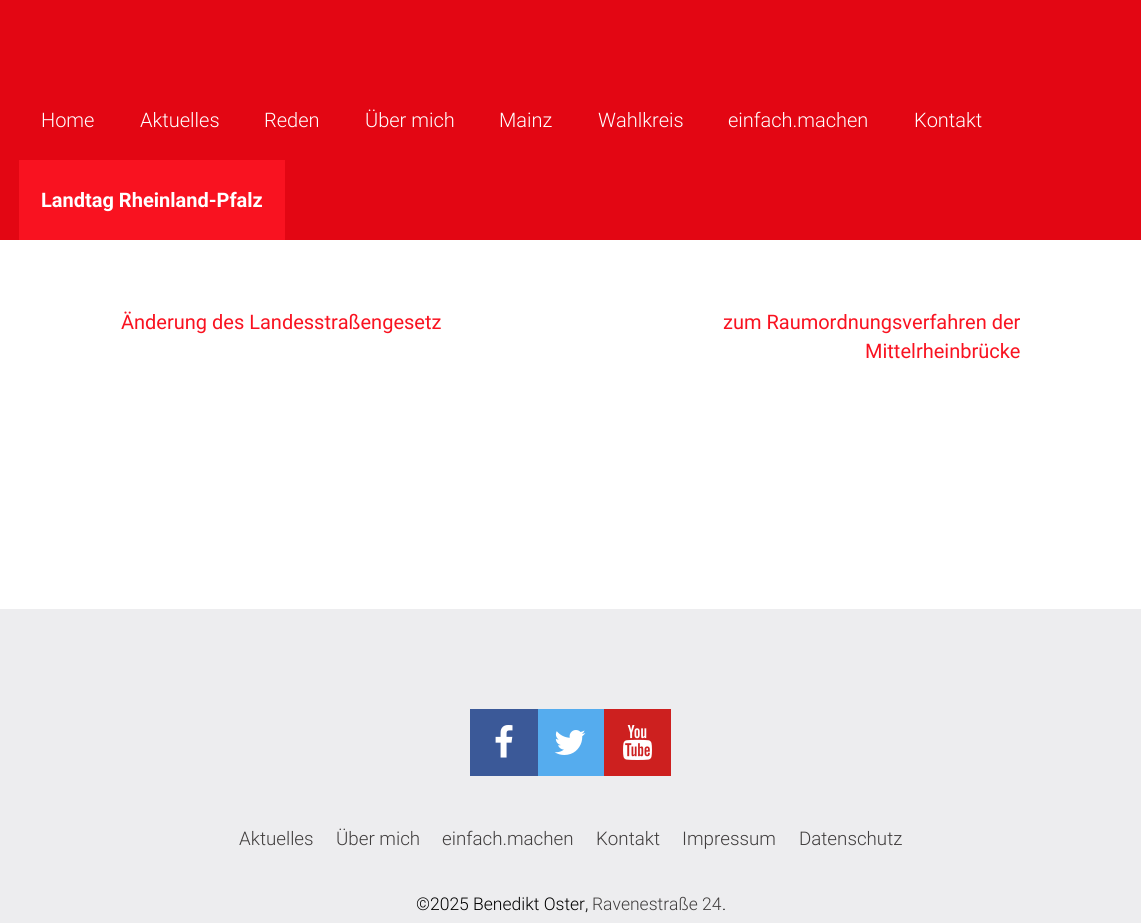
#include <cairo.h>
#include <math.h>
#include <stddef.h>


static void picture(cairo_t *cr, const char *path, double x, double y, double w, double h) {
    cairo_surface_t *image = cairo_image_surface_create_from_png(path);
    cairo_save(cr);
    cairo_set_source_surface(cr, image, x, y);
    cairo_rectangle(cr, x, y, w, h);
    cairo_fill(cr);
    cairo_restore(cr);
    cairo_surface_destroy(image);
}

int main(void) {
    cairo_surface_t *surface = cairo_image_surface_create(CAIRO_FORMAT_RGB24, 1141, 923);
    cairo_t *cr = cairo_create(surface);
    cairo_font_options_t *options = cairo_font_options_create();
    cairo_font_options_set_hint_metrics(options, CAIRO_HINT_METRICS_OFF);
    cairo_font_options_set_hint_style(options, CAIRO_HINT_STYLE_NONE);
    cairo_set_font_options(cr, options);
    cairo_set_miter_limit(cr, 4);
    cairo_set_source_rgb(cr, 1, 1, 1);
    cairo_paint(cr);
    cairo_set_source_rgb(cr, 0.89, 0.024, 0.075);
    cairo_rectangle(cr, 0, 0, 1141, 240);
    cairo_fill(cr);
    cairo_select_font_face(cr, "Roboto Light", CAIRO_FONT_SLANT_NORMAL, CAIRO_FONT_WEIGHT_NORMAL);
    cairo_set_font_size(cr, 20);
    cairo_set_source_rgb(cr, 1, 1, 1);
    cairo_move_to(cr, 41, 127);
    cairo_show_text(cr, "Home");
    cairo_move_to(cr, 140, 127);
    cairo_show_text(cr, "Aktuelles");
    cairo_move_to(cr, 264, 127);
    cairo_show_text(cr, "Reden");
    cairo_move_to(cr, 365, 127);
    cairo_show_text(cr, "Über mich");
    cairo_move_to(cr, 499, 127);
    cairo_show_text(cr, "Mainz");
    cairo_move_to(cr, 598, 127);
    cairo_show_text(cr, "Wahlkreis");
    cairo_move_to(cr, 728, 127);
    cairo_show_text(cr, "einfach.machen");
    cairo_move_to(cr, 914, 127);
    cairo_show_text(cr, "Kontakt");
    cairo_set_source_rgb(cr, 0.976, 0.071, 0.125);
    cairo_rectangle(cr, 19, 160, 266, 80);
    cairo_fill(cr);
    cairo_select_font_face(cr, "Roboto", CAIRO_FONT_SLANT_NORMAL, CAIRO_FONT_WEIGHT_BOLD);
    cairo_set_source_rgb(cr, 1, 1, 1);
    cairo_move_to(cr, 41, 207);
    cairo_show_text(cr, "Landtag Rheinland-Pfalz");
    cairo_select_font_face(cr, "Roboto", CAIRO_FONT_SLANT_NORMAL, CAIRO_FONT_WEIGHT_NORMAL);
    cairo_set_source_rgb(cr, 0.976, 0.071, 0.125);
    cairo_move_to(cr, 121, 329);
    cairo_show_text(cr, "Änderung des Landesstraßengesetz");
    cairo_move_to(cr, 723, 329);
    cairo_show_text(cr, "zum Raumordnungsverfahren der");
    cairo_move_to(cr, 865, 358);
    cairo_show_text(cr, "Mittelrheinbrücke");
    cairo_set_source_rgb(cr, 0.929, 0.929, 0.937);
    cairo_rectangle(cr, 0, 609, 1141, 314);
    cairo_fill(cr);
    cairo_set_source_rgb(cr, 0.231, 0.349, 0.596);
    cairo_rectangle(cr, 470, 709, 68, 67);
    cairo_fill(cr);
    picture(cr, "img1.png", 495, 725, 18, 33);
    cairo_set_source_rgb(cr, 0.333, 0.675, 0.933);
    cairo_rectangle(cr, 538, 709, 66, 67);
    cairo_fill(cr);
    picture(cr, "img2.png", 554, 730, 32, 25);
    cairo_set_source_rgb(cr, 0.804, 0.125, 0.122);
    cairo_rectangle(cr, 604, 709, 67, 67);
    cairo_fill(cr);
    picture(cr, "img3.png", 623, 725, 29, 35);
    cairo_select_font_face(cr, "Roboto Light", CAIRO_FONT_SLANT_NORMAL, CAIRO_FONT_WEIGHT_NORMAL);
    cairo_set_font_size(cr, 18.75);
    cairo_set_source_rgb(cr, 0.251, 0.239, 0.239);
    cairo_move_to(cr, 239, 845);
    cairo_show_text(cr, "Aktuelles");
    cairo_move_to(cr, 336, 845);
    cairo_show_text(cr, "Über mich");
    cairo_move_to(cr, 442, 845);
    cairo_show_text(cr, "einfach.machen");
    cairo_move_to(cr, 596, 845);
    cairo_show_text(cr, "Kontakt");
    cairo_move_to(cr, 682, 845);
    cairo_show_text(cr, "Impressum");
    cairo_move_to(cr, 799, 845);
    cairo_show_text(cr, "Datenschutz");
    cairo_set_font_size(cr, 17.5);
    cairo_set_source_rgb(cr, 0, 0, 0);
    cairo_move_to(cr, 416, 910);
    cairo_show_text(cr, "©2025 Benedikt Oster,");
    cairo_set_source_rgb(cr, 0.251, 0.239, 0.239);
    cairo_move_to(cr, 592, 910);
    cairo_show_text(cr, "Ravenestraße 24");
    cairo_set_source_rgb(cr, 0, 0, 0);
    cairo_move_to(cr, 722, 910);
    cairo_show_text(cr, ".");
    cairo_surface_write_to_png(surface, "page.png");
    cairo_font_options_destroy(options);
    cairo_destroy(cr);
    cairo_surface_destroy(surface);
    return 0;
}
